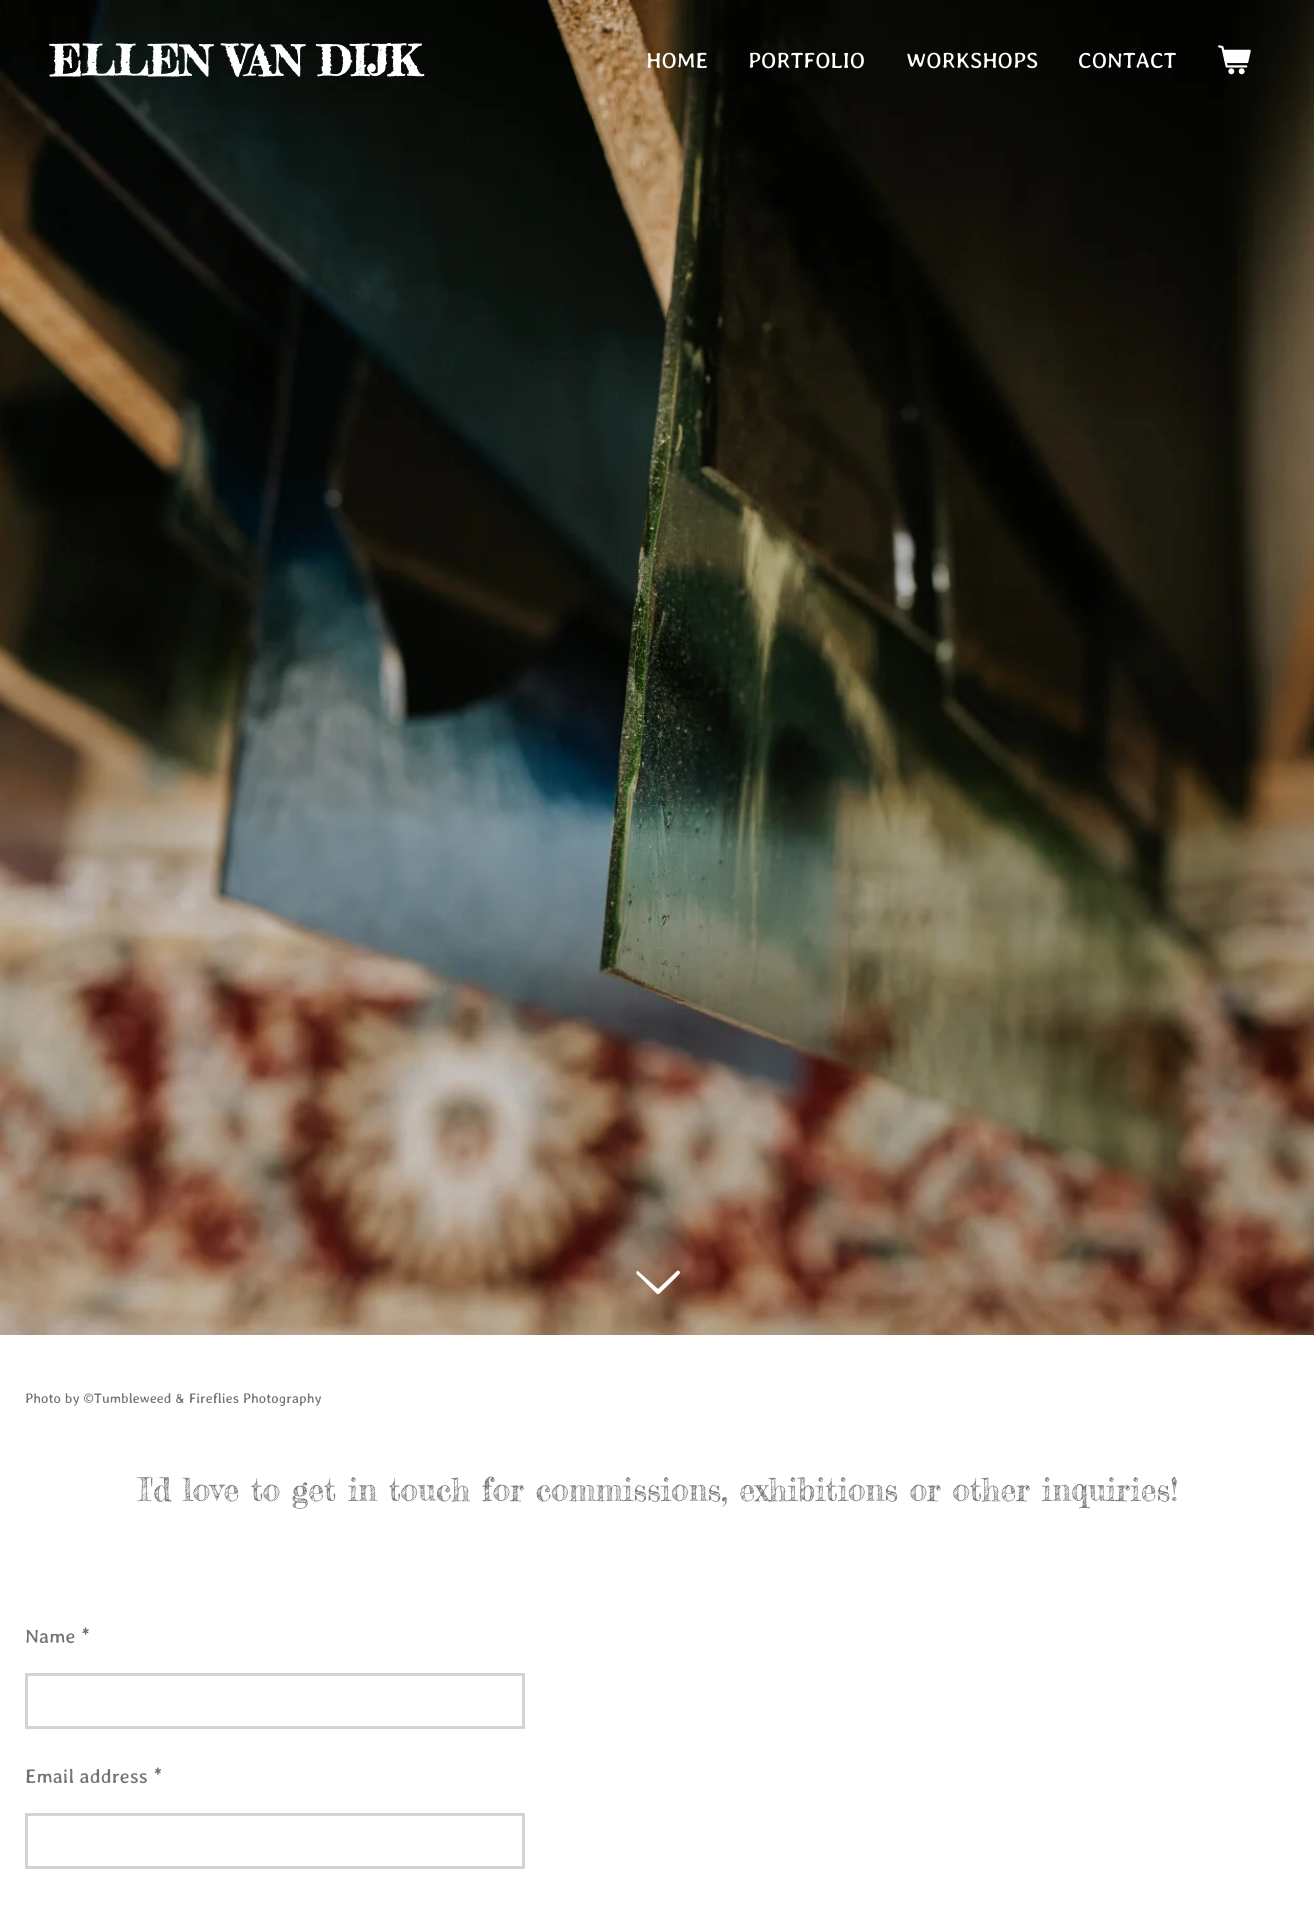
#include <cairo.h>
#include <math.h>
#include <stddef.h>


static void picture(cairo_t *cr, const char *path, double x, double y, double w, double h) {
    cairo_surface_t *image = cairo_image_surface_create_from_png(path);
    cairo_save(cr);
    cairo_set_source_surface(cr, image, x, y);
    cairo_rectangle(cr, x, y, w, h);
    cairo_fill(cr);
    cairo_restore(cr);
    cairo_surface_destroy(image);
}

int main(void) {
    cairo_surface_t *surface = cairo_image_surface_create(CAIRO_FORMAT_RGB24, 1314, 1905);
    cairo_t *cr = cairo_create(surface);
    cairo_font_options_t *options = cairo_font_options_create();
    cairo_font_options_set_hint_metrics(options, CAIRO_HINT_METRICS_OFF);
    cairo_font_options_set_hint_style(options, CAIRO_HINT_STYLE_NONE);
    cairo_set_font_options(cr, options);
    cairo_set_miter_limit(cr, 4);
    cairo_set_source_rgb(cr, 1, 1, 1);
    cairo_paint(cr);
    picture(cr, "img1.png", 0, 0, 1314, 1335);
    cairo_set_source_rgb(cr, 1, 1, 1);
    cairo_new_path(cr);
    cairo_move_to(cr, 639, 1272);
    cairo_line_to(cr, 658, 1289);
    cairo_line_to(cr, 677, 1271);
    cairo_curve_to(cr, 678, 1270, 680, 1271, 680, 1273);
    cairo_curve_to(cr, 680, 1274, 661, 1292, 659, 1294);
    cairo_line_to(cr, 657, 1294);
    cairo_line_to(cr, 640, 1277);
    cairo_curve_to(cr, 640, 1277, 633, 1272, 638, 1271);
    cairo_close_path(cr);
    cairo_fill(cr);
    cairo_select_font_face(cr, "Fredericka the Great", CAIRO_FONT_SLANT_NORMAL, CAIRO_FONT_WEIGHT_BOLD);
    cairo_set_font_size(cr, 41.75);
    cairo_move_to(cr, 50, 76);
    cairo_show_text(cr, "ELLEN VAN DIJK");
    cairo_select_font_face(cr, "Stylish", CAIRO_FONT_SLANT_NORMAL, CAIRO_FONT_WEIGHT_NORMAL);
    cairo_set_font_size(cr, 25);
    cairo_move_to(cr, 646, 68);
    cairo_show_text(cr, "HOME");
    cairo_move_to(cr, 748, 68);
    cairo_show_text(cr, "PORTFOLIO");
    cairo_move_to(cr, 906, 68);
    cairo_show_text(cr, "WORKSHOPS");
    cairo_move_to(cr, 1078, 68);
    cairo_show_text(cr, "CONTACT");
    picture(cr, "img2.png", 1218, 45, 33, 30);
    cairo_set_font_size(cr, 15.75);
    cairo_set_source_rgb(cr, 0.451, 0.451, 0.451);
    cairo_move_to(cr, 25, 1403);
    cairo_show_text(cr, "Photo by ©Tumbleweed & Fireflies Photography");
    cairo_select_font_face(cr, "Fredericka the Great", CAIRO_FONT_SLANT_NORMAL, CAIRO_FONT_WEIGHT_NORMAL);
    cairo_set_font_size(cr, 32);
    cairo_move_to(cr, 138, 1501);
    cairo_show_text(cr, "I'd love to get in touch for commissions, exhibitions or other inquiries!");
    cairo_select_font_face(cr, "Stylish", CAIRO_FONT_SLANT_NORMAL, CAIRO_FONT_WEIGHT_NORMAL);
    cairo_set_font_size(cr, 22.5);
    cairo_move_to(cr, 25, 1643);
    cairo_show_text(cr, "Name *");
    cairo_rectangle(cr, 26.5, 1674.5, 497, 53);
    cairo_set_source_rgb(cr, 0.827, 0.827, 0.827);
    cairo_set_line_width(cr, 3);
    cairo_stroke(cr);
    cairo_set_source_rgb(cr, 0.451, 0.451, 0.451);
    cairo_move_to(cr, 25, 1783);
    cairo_show_text(cr, "Email address *");
    cairo_rectangle(cr, 26.5, 1814.5, 497, 53);
    cairo_set_source_rgb(cr, 0.827, 0.827, 0.827);
    cairo_stroke(cr);
    cairo_surface_write_to_png(surface, "page.png");
    cairo_font_options_destroy(options);
    cairo_destroy(cr);
    cairo_surface_destroy(surface);
    return 0;
}
